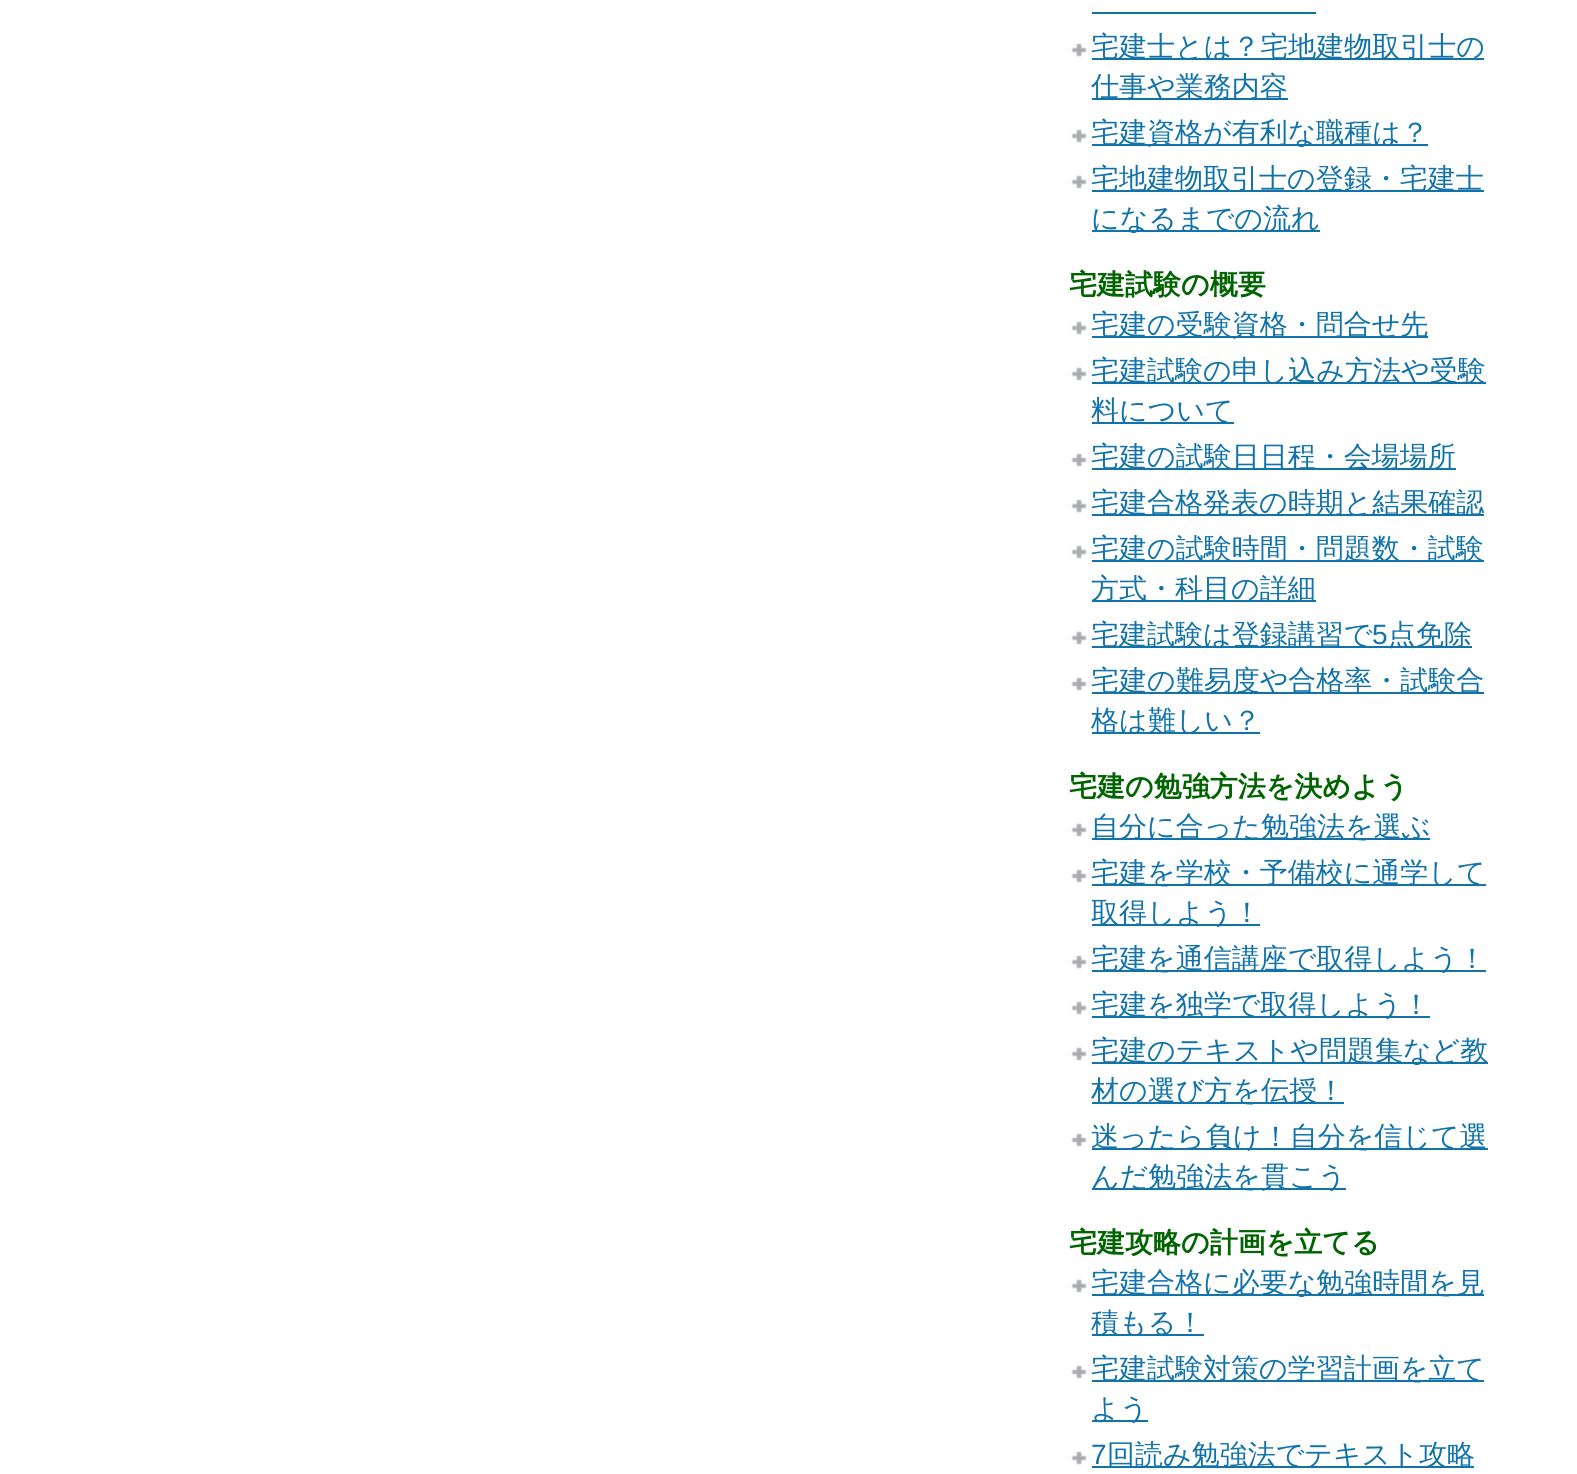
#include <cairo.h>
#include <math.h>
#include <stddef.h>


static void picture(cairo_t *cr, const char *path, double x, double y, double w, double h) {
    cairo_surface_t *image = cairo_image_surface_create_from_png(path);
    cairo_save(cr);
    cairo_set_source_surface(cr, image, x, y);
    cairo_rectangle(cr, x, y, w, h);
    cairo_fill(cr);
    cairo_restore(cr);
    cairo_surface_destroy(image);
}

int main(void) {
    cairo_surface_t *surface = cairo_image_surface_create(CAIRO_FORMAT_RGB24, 1577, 1474);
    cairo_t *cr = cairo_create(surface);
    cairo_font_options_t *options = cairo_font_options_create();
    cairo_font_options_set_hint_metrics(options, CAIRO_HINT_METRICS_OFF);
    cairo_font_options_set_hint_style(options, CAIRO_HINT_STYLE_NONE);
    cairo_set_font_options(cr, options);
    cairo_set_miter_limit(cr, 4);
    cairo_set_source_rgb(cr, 1, 1, 1);
    cairo_paint(cr);
    cairo_set_source_rgb(cr, 0.071, 0.451, 0.667);
    cairo_rectangle(cr, 1092, 12, 224, 2);
    cairo_fill(cr);
    picture(cr, "img1.png", 1071, 43, 16, 14);
    cairo_rectangle(cr, 1092, 58, 392, 2);
    cairo_fill(cr);
    cairo_select_font_face(cr, "WenQuanYi Zen Hei Medium", CAIRO_FONT_SLANT_NORMAL, CAIRO_FONT_WEIGHT_NORMAL);
    cairo_set_font_size(cr, 28);
    cairo_move_to(cr, 1091, 56);
    cairo_show_text(cr, "宅建士とは？宅地建物取引士の");
    cairo_rectangle(cr, 1092, 98, 196, 2);
    cairo_fill(cr);
    cairo_move_to(cr, 1091, 96);
    cairo_show_text(cr, "仕事や業務内容");
    picture(cr, "img1.png", 1071, 129, 16, 14);
    cairo_rectangle(cr, 1092, 144, 336, 2);
    cairo_fill(cr);
    cairo_move_to(cr, 1091, 142);
    cairo_show_text(cr, "宅建資格が有利な職種は？");
    picture(cr, "img1.png", 1071, 175, 16, 14);
    cairo_rectangle(cr, 1092, 190, 392, 2);
    cairo_fill(cr);
    cairo_move_to(cr, 1091, 188);
    cairo_show_text(cr, "宅地建物取引士の登録・宅建士");
    cairo_rectangle(cr, 1092, 230, 228, 2);
    cairo_fill(cr);
    cairo_move_to(cr, 1091, 228);
    cairo_show_text(cr, "になるまでの流れ");
    cairo_select_font_face(cr, "WenQuanYi Zen Hei", CAIRO_FONT_SLANT_NORMAL, CAIRO_FONT_WEIGHT_BOLD);
    cairo_set_source_rgb(cr, 0, 0.392, 0);
    cairo_move_to(cr, 1069, 294);
    cairo_show_text(cr, "宅建試験の概要");
    picture(cr, "img1.png", 1071, 321, 16, 14);
    cairo_set_source_rgb(cr, 0.071, 0.451, 0.667);
    cairo_rectangle(cr, 1092, 336, 336, 2);
    cairo_fill(cr);
    cairo_select_font_face(cr, "WenQuanYi Zen Hei Medium", CAIRO_FONT_SLANT_NORMAL, CAIRO_FONT_WEIGHT_NORMAL);
    cairo_move_to(cr, 1091, 334);
    cairo_show_text(cr, "宅建の受験資格・問合せ先");
    picture(cr, "img1.png", 1071, 367, 16, 14);
    cairo_rectangle(cr, 1092, 382, 394, 2);
    cairo_fill(cr);
    cairo_move_to(cr, 1091, 380);
    cairo_show_text(cr, "宅建試験の申し込み方法や受験");
    cairo_rectangle(cr, 1092, 422, 142, 2);
    cairo_fill(cr);
    cairo_move_to(cr, 1091, 420);
    cairo_show_text(cr, "料について");
    picture(cr, "img1.png", 1071, 453, 16, 14);
    cairo_rectangle(cr, 1092, 468, 364, 2);
    cairo_fill(cr);
    cairo_move_to(cr, 1091, 466);
    cairo_show_text(cr, "宅建の試験日日程・会場場所");
    picture(cr, "img1.png", 1071, 499, 16, 14);
    cairo_rectangle(cr, 1092, 514, 392, 2);
    cairo_fill(cr);
    cairo_move_to(cr, 1091, 512);
    cairo_show_text(cr, "宅建合格発表の時期と結果確認");
    picture(cr, "img1.png", 1071, 545, 16, 14);
    cairo_rectangle(cr, 1092, 560, 392, 2);
    cairo_fill(cr);
    cairo_move_to(cr, 1091, 558);
    cairo_show_text(cr, "宅建の試験時間・問題数・試験");
    cairo_rectangle(cr, 1092, 600, 224, 2);
    cairo_fill(cr);
    cairo_move_to(cr, 1091, 598);
    cairo_show_text(cr, "方式・科目の詳細");
    picture(cr, "img1.png", 1071, 631, 16, 14);
    cairo_rectangle(cr, 1092, 646, 380, 2);
    cairo_fill(cr);
    cairo_move_to(cr, 1091, 644);
    cairo_show_text(cr, "宅建試験は登録講習で");
    cairo_select_font_face(cr, "Liberation Sans", CAIRO_FONT_SLANT_NORMAL, CAIRO_FONT_WEIGHT_NORMAL);
    cairo_move_to(cr, 1372, 644);
    cairo_show_text(cr, "5");
    cairo_select_font_face(cr, "WenQuanYi Zen Hei Medium", CAIRO_FONT_SLANT_NORMAL, CAIRO_FONT_WEIGHT_NORMAL);
    cairo_move_to(cr, 1388, 644);
    cairo_show_text(cr, "点免除");
    picture(cr, "img1.png", 1071, 677, 16, 14);
    cairo_rectangle(cr, 1092, 692, 392, 2);
    cairo_fill(cr);
    cairo_move_to(cr, 1091, 690);
    cairo_show_text(cr, "宅建の難易度や合格率・試験合");
    cairo_rectangle(cr, 1092, 732, 168, 2);
    cairo_fill(cr);
    cairo_move_to(cr, 1091, 730);
    cairo_show_text(cr, "格は難しい？");
    cairo_select_font_face(cr, "WenQuanYi Zen Hei", CAIRO_FONT_SLANT_NORMAL, CAIRO_FONT_WEIGHT_BOLD);
    cairo_set_source_rgb(cr, 0, 0.392, 0);
    cairo_move_to(cr, 1069, 796);
    cairo_show_text(cr, "宅建の勉強方法を決めよう");
    picture(cr, "img1.png", 1071, 823, 16, 14);
    cairo_set_source_rgb(cr, 0.071, 0.451, 0.667);
    cairo_rectangle(cr, 1092, 838, 338, 2);
    cairo_fill(cr);
    cairo_select_font_face(cr, "WenQuanYi Zen Hei Medium", CAIRO_FONT_SLANT_NORMAL, CAIRO_FONT_WEIGHT_NORMAL);
    cairo_move_to(cr, 1091, 836);
    cairo_show_text(cr, "自分に合った勉強法を選ぶ");
    picture(cr, "img1.png", 1071, 869, 16, 14);
    cairo_rectangle(cr, 1092, 884, 394, 2);
    cairo_fill(cr);
    cairo_move_to(cr, 1091, 882);
    cairo_show_text(cr, "宅建を学校・予備校に通学して");
    cairo_rectangle(cr, 1092, 924, 168, 2);
    cairo_fill(cr);
    cairo_move_to(cr, 1091, 922);
    cairo_show_text(cr, "取得しよう！");
    picture(cr, "img1.png", 1071, 955, 16, 14);
    cairo_rectangle(cr, 1092, 970, 394, 2);
    cairo_fill(cr);
    cairo_move_to(cr, 1091, 968);
    cairo_show_text(cr, "宅建を通信講座で取得しよう！");
    picture(cr, "img1.png", 1071, 1001, 16, 14);
    cairo_rectangle(cr, 1092, 1016, 338, 2);
    cairo_fill(cr);
    cairo_move_to(cr, 1091, 1014);
    cairo_show_text(cr, "宅建を独学で取得しよう！");
    picture(cr, "img1.png", 1071, 1047, 16, 14);
    cairo_rectangle(cr, 1092, 1062, 396, 2);
    cairo_fill(cr);
    cairo_move_to(cr, 1091, 1060);
    cairo_show_text(cr, "宅建のテキストや問題集など教");
    cairo_rectangle(cr, 1092, 1102, 252, 2);
    cairo_fill(cr);
    cairo_move_to(cr, 1091, 1100);
    cairo_show_text(cr, "材の選び方を伝授！");
    picture(cr, "img1.png", 1071, 1133, 16, 14);
    cairo_rectangle(cr, 1092, 1148, 396, 2);
    cairo_fill(cr);
    cairo_move_to(cr, 1091, 1146);
    cairo_show_text(cr, "迷ったら負け！自分を信じて選");
    cairo_rectangle(cr, 1092, 1188, 254, 2);
    cairo_fill(cr);
    cairo_move_to(cr, 1091, 1186);
    cairo_show_text(cr, "んだ勉強法を貫こう");
    cairo_select_font_face(cr, "WenQuanYi Zen Hei", CAIRO_FONT_SLANT_NORMAL, CAIRO_FONT_WEIGHT_BOLD);
    cairo_set_source_rgb(cr, 0, 0.392, 0);
    cairo_move_to(cr, 1069, 1252);
    cairo_show_text(cr, "宅建攻略の計画を立てる");
    picture(cr, "img1.png", 1071, 1279, 16, 14);
    cairo_set_source_rgb(cr, 0.071, 0.451, 0.667);
    cairo_rectangle(cr, 1092, 1294, 392, 2);
    cairo_fill(cr);
    cairo_select_font_face(cr, "WenQuanYi Zen Hei Medium", CAIRO_FONT_SLANT_NORMAL, CAIRO_FONT_WEIGHT_NORMAL);
    cairo_move_to(cr, 1091, 1292);
    cairo_show_text(cr, "宅建合格に必要な勉強時間を見");
    cairo_rectangle(cr, 1092, 1334, 112, 2);
    cairo_fill(cr);
    cairo_move_to(cr, 1091, 1332);
    cairo_show_text(cr, "積もる！");
    picture(cr, "img1.png", 1071, 1365, 16, 14);
    cairo_rectangle(cr, 1092, 1380, 392, 2);
    cairo_fill(cr);
    cairo_move_to(cr, 1091, 1378);
    cairo_show_text(cr, "宅建試験対策の学習計画を立て");
    cairo_rectangle(cr, 1092, 1420, 56, 2);
    cairo_fill(cr);
    cairo_move_to(cr, 1091, 1418);
    cairo_show_text(cr, "よう");
    picture(cr, "img1.png", 1071, 1451, 16, 14);
    cairo_select_font_face(cr, "Liberation Sans", CAIRO_FONT_SLANT_NORMAL, CAIRO_FONT_WEIGHT_NORMAL);
    cairo_move_to(cr, 1091, 1464);
    cairo_show_text(cr, "7");
    cairo_rectangle(cr, 1092, 1466, 382, 2);
    cairo_fill(cr);
    cairo_select_font_face(cr, "WenQuanYi Zen Hei Medium", CAIRO_FONT_SLANT_NORMAL, CAIRO_FONT_WEIGHT_NORMAL);
    cairo_move_to(cr, 1107, 1464);
    cairo_show_text(cr, "回読み勉強法でテキスト攻略");
    cairo_surface_write_to_png(surface, "page.png");
    cairo_font_options_destroy(options);
    cairo_destroy(cr);
    cairo_surface_destroy(surface);
    return 0;
}
